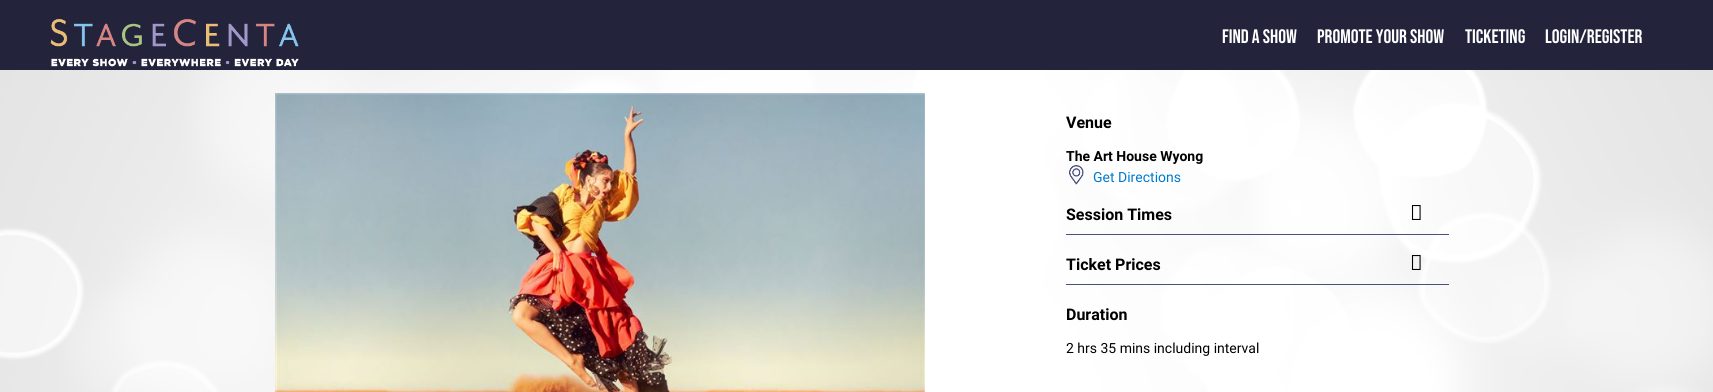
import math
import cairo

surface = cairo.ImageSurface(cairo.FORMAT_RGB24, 1713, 392)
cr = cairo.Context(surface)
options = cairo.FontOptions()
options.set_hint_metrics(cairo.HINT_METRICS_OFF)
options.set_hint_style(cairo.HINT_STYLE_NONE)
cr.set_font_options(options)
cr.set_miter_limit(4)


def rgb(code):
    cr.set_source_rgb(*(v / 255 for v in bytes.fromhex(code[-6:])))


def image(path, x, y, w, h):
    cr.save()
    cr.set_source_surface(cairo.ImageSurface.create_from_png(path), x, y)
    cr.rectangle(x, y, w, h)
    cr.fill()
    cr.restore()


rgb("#ffffff")
cr.paint()
image("img/1.png", 0, 70, 1713, 322)
rgb("#23243b")
cr.rectangle(0, 0, 1713, 70)
cr.fill()
image("img/2.png", 50, 18, 249, 49)
image("img/3.png", 275, 93, 650, 299)
image("img/4.png", 1069, 165, 15, 20)
rgb("#4a4f7f")
cr.rectangle(1066, 234, 383, 1)
cr.fill()
image("img/5.png", 1411, 205, 10, 15)
cr.rectangle(1066, 284, 383, 1)
cr.fill()
image("img/6.png", 1411, 255, 10, 15)
cr.select_font_face("Bebas Neue")
cr.set_font_size(19.5)
rgb("#ffffff")
for x, y, s in [
    (1222, 43, "FIND A SHOW"),
    (1317, 43, "PROMOTE YOUR SHOW"),
    (1465, 43, "TICKETING"),
    (1545, 43, "LOGIN/REGISTER"),
]:
    cr.move_to(x, y)
    cr.show_text(s)
cr.select_font_face("Roboto", cairo.FONT_SLANT_NORMAL, cairo.FONT_WEIGHT_BOLD)
cr.set_font_size(16)
rgb("#000000")
cr.move_to(1066, 128)
cr.show_text("Venue")
cr.set_font_size(14)
cr.move_to(1066, 161)
cr.show_text("The Art House Wyong")
cr.select_font_face("Roboto")
rgb("#007ace")
cr.move_to(1093, 182)
cr.show_text("Get Directions")
cr.select_font_face("Roboto", cairo.FONT_SLANT_NORMAL, cairo.FONT_WEIGHT_BOLD)
cr.set_font_size(16)
rgb("#000000")
for x, y, s in [
    (1066, 220, "Session Times"),
    (1066, 270, "Ticket Prices"),
    (1066, 320, "Duration"),
]:
    cr.move_to(x, y)
    cr.show_text(s)
cr.select_font_face("Roboto")
cr.set_font_size(14)
cr.move_to(1066, 353)
cr.show_text("2 hrs 35 mins including interval")
surface.write_to_png("page.png")
